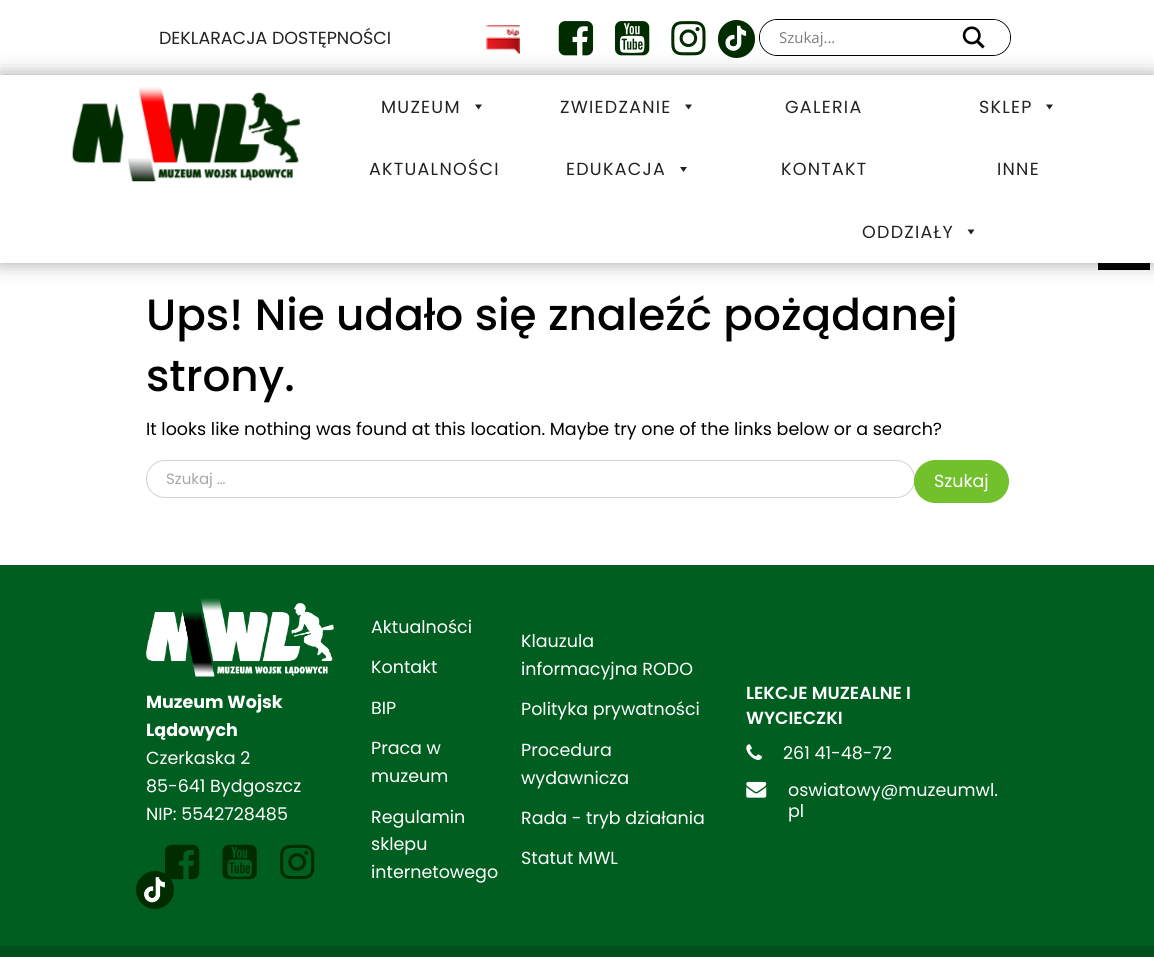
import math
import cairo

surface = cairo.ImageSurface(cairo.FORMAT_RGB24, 1154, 957)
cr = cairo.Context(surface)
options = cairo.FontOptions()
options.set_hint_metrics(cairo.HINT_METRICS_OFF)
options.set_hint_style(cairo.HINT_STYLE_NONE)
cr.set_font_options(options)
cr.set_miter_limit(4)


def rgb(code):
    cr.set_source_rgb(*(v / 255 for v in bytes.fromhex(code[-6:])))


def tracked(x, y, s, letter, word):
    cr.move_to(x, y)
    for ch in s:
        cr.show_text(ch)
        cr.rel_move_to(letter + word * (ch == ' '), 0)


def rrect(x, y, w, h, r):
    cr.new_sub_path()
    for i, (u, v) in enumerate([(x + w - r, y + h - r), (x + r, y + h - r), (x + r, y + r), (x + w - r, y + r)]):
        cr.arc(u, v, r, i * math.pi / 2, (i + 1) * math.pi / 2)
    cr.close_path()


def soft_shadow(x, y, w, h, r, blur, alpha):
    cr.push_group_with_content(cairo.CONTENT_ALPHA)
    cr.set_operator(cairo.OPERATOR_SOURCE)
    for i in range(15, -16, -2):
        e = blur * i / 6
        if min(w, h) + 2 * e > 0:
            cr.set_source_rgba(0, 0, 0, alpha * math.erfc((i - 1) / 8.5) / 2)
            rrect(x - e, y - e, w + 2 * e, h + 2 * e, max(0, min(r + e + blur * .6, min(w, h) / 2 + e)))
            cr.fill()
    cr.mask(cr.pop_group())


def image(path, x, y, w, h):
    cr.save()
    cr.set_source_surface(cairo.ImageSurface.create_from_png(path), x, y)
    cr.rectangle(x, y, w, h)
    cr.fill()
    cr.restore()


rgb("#ffffff")
cr.paint()
image("img/1.png", 486, 25, 34, 29)
image("img/2.png", 558, 21, 36, 35)
image("img/3.png", 615, 21, 35, 35)
image("img/4.png", 671, 21, 35, 35)
rgb("#012c00")
rrect(718, 20, 37, 38, 18.5)
cr.fill()
image("img/5.png", 725, 25, 22, 26)
rrect(759.5, 19.5, 251, 36, 18)
rgb("#000000")
cr.set_line_width(1)
cr.stroke()
rgb("#ffffff")
rrect(760, 20, 250, 35, 17.5)
cr.fill()
image("img/6.png", 962, 26, 23, 23)
rgb("#000000")
cr.rectangle(1098, 263, 52, 7)
cr.fill()
rgb("#191919")
soft_shadow(0, 75, 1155, 188, 0, 9.5, 0.4)
rgb("#ffffff")
cr.rectangle(0, 75, 1154, 188)
cr.fill()
image("img/7.png", 72, 87, 229, 95)
rgb("#212121")
cr.new_path()
cr.move_to(482, 104.5)
cr.line_to(478.5, 109.5)
cr.line_to(475, 104.5)
cr.close_path()
cr.fill()
cr.new_path()
cr.move_to(692, 104.5)
cr.line_to(688.5, 109.5)
cr.line_to(685, 104.5)
cr.close_path()
cr.fill()
cr.new_path()
cr.move_to(687, 167)
cr.line_to(683.5, 172)
cr.line_to(680, 167)
cr.close_path()
cr.fill()
cr.new_path()
cr.move_to(1053, 104.5)
cr.line_to(1049.5, 109.5)
cr.line_to(1046, 104.5)
cr.close_path()
cr.fill()
cr.new_path()
cr.move_to(974.5, 229.5)
cr.line_to(971, 234.5)
cr.line_to(967.5, 229.5)
cr.close_path()
cr.fill()
rrect(146.5, 460.5, 768, 37, 18.5)
rgb("#ced4da")
cr.stroke()
rgb("#72c02c")
rrect(914.5, 460.5, 94, 42, 21)
cr.fill_preserve()
cr.stroke()
rgb("#005e20")
cr.rectangle(0, 565, 1154, 381)
cr.fill()
image("img/8.png", 146, 598, 188, 79)
rgb("#012c00")
cr.arc(155, 890, 19, 0, 2 * math.pi)
cr.fill()
image("img/9.png", 165, 844, 35, 36)
image("img/10.png", 222, 844, 35, 36)
image("img/11.png", 280, 844, 35, 36)
image("img/12.png", 144, 877, 21, 26)
image("img/13.png", 746, 744, 16, 16)
image("img/14.png", 746, 781, 21, 17)
rgb("#02501c")
cr.rectangle(0, 946, 1154, 11)
cr.fill()
cr.select_font_face("Poppins")
cr.set_font_size(17.5)
rgb("#222222")
cr.move_to(159, 44)
cr.show_text("DEKLARACJA DOSTĘPNOŚCI")
cr.save()
rrect(779, 20, 152, 35, 17.5)
cr.clip()
cr.select_font_face("Open Sans")
cr.set_font_size(15)
rgb("#7d7d7d")
cr.move_to(779, 43)
cr.show_text("Szukaj...")
cr.restore()
for x, y, s in [
    (381, 113, "MUZEUM"),
    (560, 113, "ZWIEDZANIE"),
    (369, 175, "AKTUALNOŚCI"),
    (566, 175, "EDUKACJA"),
    (785, 113, "GALERIA"),
    (979, 113, "SKLEP"),
    (781, 175, "KONTAKT"),
    (997, 175, "INNE"),
    (862, 238, "ODDZIAŁY"),
]:
    tracked(x, y, s, 1.25, 0)
cr.select_font_face("Poppins Medium")
cr.set_font_size(43.75)
rgb("#000000")
cr.move_to(146, 330)
cr.show_text("Ups! Nie udało się znaleźć pożądanej")
cr.move_to(146, 391)
cr.show_text("strony.")
cr.select_font_face("Poppins")
cr.set_font_size(17.5)
cr.move_to(146, 435)
cr.show_text("It looks like nothing was found at this location. Maybe try one of the links below or a search?")
cr.set_font_size(15)
rgb("#a4a8ab")
cr.move_to(166, 484)
cr.show_text("Szukaj …")
cr.set_font_size(17.5)
rgb("#ffffff")
cr.move_to(934, 487)
cr.show_text("Szukaj")
cr.select_font_face("Poppins", cairo.FONT_SLANT_NORMAL, cairo.FONT_WEIGHT_BOLD)
cr.move_to(146, 708)
cr.show_text("Muzeum Wojsk")
cr.move_to(146, 736)
cr.show_text("Lądowych")
cr.select_font_face("Poppins")
for x, y, s in [
    (146, 764, "Czerkaska 2"),
    (146, 792, "85-641 Bydgoszcz"),
    (146, 820, "NIP: 5542728485"),
    (371, 633, "Aktualności"),
    (371, 673, "Kontakt"),
    (371, 714, "BIP"),
    (371, 754, "Praca w"),
    (371, 782, "muzeum"),
    (371, 823, "Regulamin"),
    (371, 850, "sklepu"),
    (371, 878, "internetowego"),
    (521, 647, "Klauzula"),
    (521, 675, "informacyjna RODO"),
    (521, 715, "Polityka prywatności"),
    (521, 756, "Procedura"),
    (521, 784, "wydawnicza"),
    (521, 824, "Rada - tryb działania"),
    (521, 864, "Statut MWL"),
]:
    cr.move_to(x, y)
    cr.show_text(s)
cr.select_font_face("Poppins SemiBold")
cr.move_to(746, 699)
cr.show_text("LEKCJE MUZEALNE I")
cr.move_to(746, 724)
cr.show_text("WYCIECZKI")
cr.select_font_face("Poppins")
for x, y, s in [
    (783, 759, "261 41-48-72"),
    (788, 796, "oswiatowy@muzeumwl."),
    (788, 817, "pl"),
]:
    cr.move_to(x, y)
    cr.show_text(s)
surface.write_to_png("page.png")
